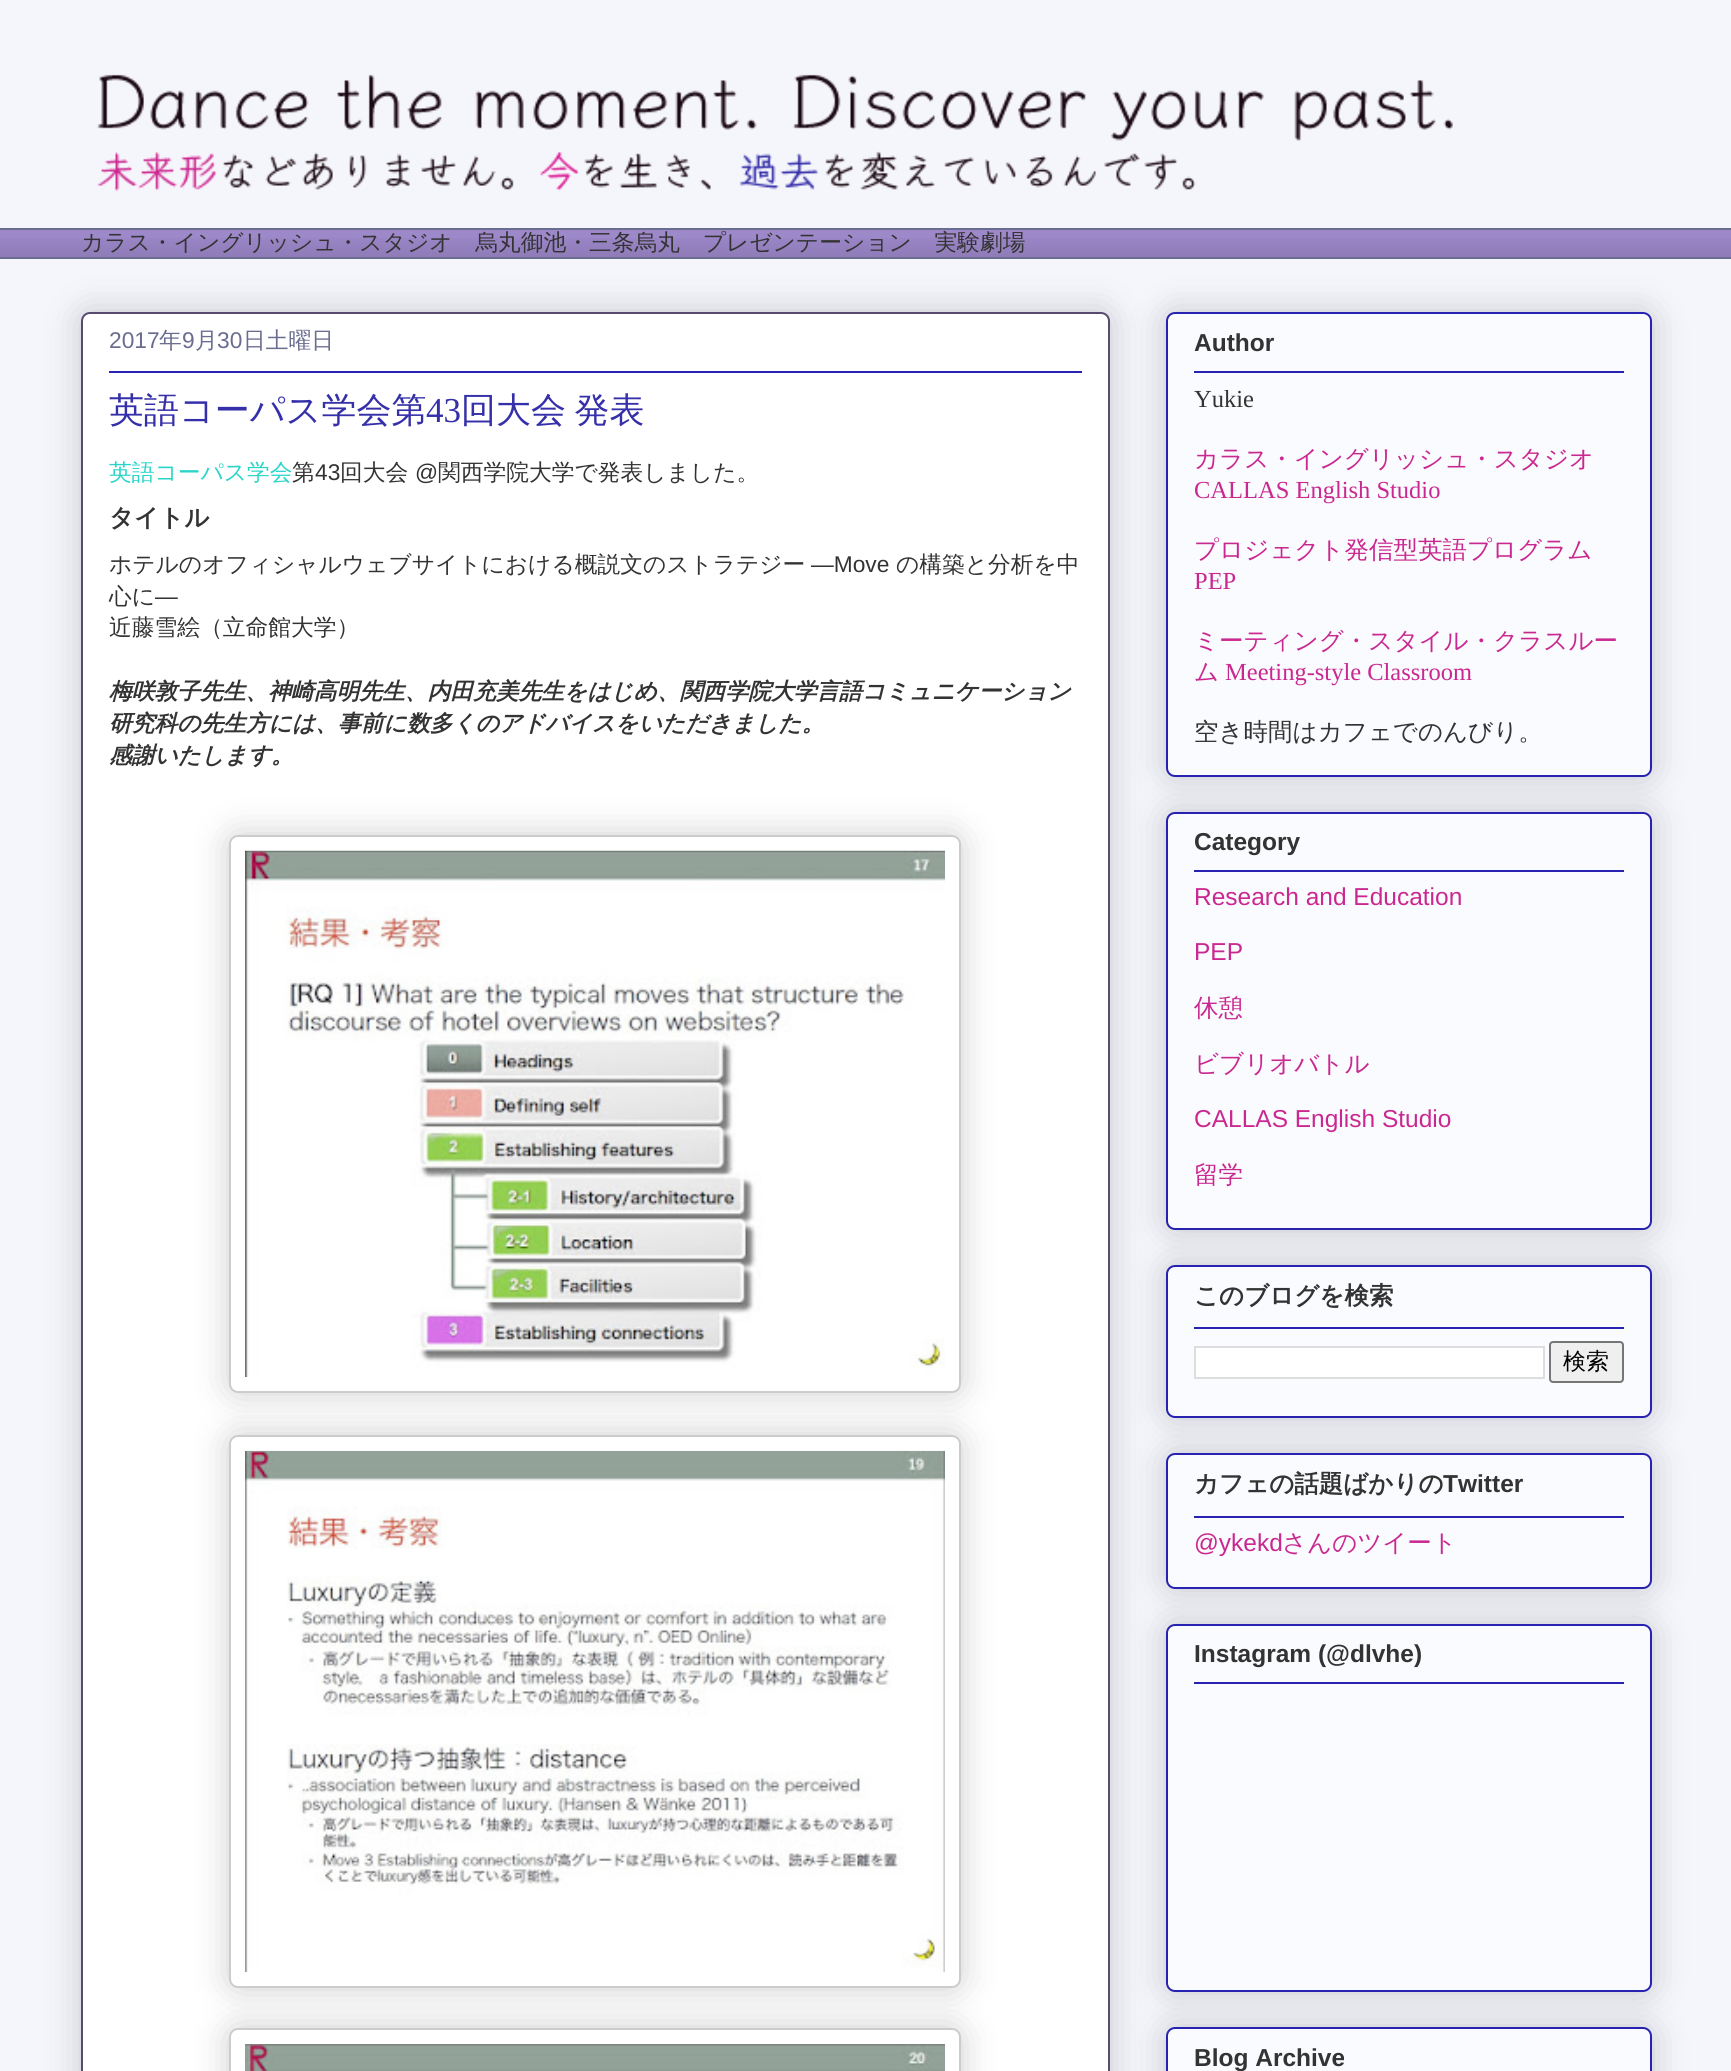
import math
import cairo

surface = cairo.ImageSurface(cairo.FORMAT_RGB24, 1731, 2071)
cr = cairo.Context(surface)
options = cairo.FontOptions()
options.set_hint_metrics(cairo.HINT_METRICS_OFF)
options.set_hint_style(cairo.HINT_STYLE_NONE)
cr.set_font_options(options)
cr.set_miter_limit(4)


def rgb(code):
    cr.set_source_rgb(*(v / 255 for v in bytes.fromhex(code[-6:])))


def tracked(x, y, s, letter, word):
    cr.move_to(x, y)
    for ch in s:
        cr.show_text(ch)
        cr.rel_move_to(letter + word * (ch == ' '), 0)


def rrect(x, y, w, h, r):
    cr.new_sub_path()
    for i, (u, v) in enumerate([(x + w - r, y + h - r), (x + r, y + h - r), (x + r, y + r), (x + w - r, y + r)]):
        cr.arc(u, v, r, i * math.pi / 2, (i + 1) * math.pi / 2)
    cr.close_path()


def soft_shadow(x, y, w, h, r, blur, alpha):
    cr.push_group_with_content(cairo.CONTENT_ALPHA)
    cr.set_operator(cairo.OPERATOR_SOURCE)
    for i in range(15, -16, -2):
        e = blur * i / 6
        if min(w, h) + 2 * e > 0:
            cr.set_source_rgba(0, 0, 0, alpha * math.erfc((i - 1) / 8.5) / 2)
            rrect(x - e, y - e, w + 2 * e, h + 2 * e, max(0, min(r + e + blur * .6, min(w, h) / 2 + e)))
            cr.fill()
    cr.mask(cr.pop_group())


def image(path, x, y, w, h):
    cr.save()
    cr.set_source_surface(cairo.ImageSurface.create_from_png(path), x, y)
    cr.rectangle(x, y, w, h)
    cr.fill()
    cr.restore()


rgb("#f5f6fc")
cr.paint()
image("img/1.png", 97, 74, 1356, 118)
rgb("#9d88ca")
cr.rectangle(0, 230, 1731, 27)
cr.fill()
image("img/2.png", 0, 238, 1731, 19)
rgb("#6a6d90")
cr.rectangle(0, 228, 1731, 2)
cr.fill()
cr.rectangle(0, 257, 1731, 2)
cr.fill()
rgb("#000000")
soft_shadow(81, 312, 1029, 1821, 9, 17.5, 0.2)
rgb("#ffffff")
rrect(82, 313, 1027, 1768, 8)
cr.fill_preserve()
rgb("#574b70")
cr.stroke()
rgb("#2722b1")
cr.rectangle(109, 371, 973, 2)
cr.fill()
rgb("#000000")
soft_shadow(229, 835, 732, 558, 9, 17.5, 0.2)
rgb("#ffffff")
rrect(230, 836, 730, 556, 8)
cr.fill_preserve()
rgb("#cccccc")
cr.stroke()
image("img/3.png", 245, 850, 700, 528)
rgb("#000000")
soft_shadow(229, 1435, 732, 553, 9, 17.5, 0.2)
rgb("#ffffff")
rrect(230, 1436, 730, 551, 8)
cr.fill_preserve()
rgb("#cccccc")
cr.stroke()
image("img/4.png", 245, 1450, 700, 523)
rgb("#000000")
soft_shadow(229, 2028, 732, 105, 9, 17.5, 0.2)
rgb("#ffffff")
rrect(230, 2029, 730, 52, 8)
cr.fill_preserve()
rgb("#cccccc")
cr.stroke()
image("img/5.png", 245, 2044, 700, 27)
rgb("#000000")
soft_shadow(1166, 312, 486, 465, 9, 17.5, 0.2)
rgb("#fafbfe")
rrect(1167, 313, 484, 463, 8)
cr.fill_preserve()
rgb("#2722b1")
cr.stroke()
cr.rectangle(1194, 371, 430, 2)
cr.fill()
rgb("#000000")
soft_shadow(1166, 812, 486, 418, 9, 17.5, 0.2)
rgb("#fafbfe")
rrect(1167, 813, 484, 416, 8)
cr.fill_preserve()
rgb("#2722b1")
cr.stroke()
cr.rectangle(1194, 870, 430, 2)
cr.fill()
rgb("#000000")
soft_shadow(1166, 1265, 486, 153, 9, 17.5, 0.2)
rgb("#fafbfe")
rrect(1167, 1266, 484, 151, 8)
cr.fill_preserve()
rgb("#2722b1")
cr.stroke()
cr.rectangle(1194, 1327, 430, 2)
cr.fill()
rgb("#ffffff")
cr.rectangle(1195, 1347, 349, 31)
cr.fill_preserve()
rgb("#dddddd")
cr.stroke()
rgb("#efefef")
rrect(1550, 1342, 73, 40, 3)
cr.fill_preserve()
rgb("#767676")
cr.stroke()
rgb("#000000")
soft_shadow(1166, 1453, 486, 136, 9, 17.5, 0.2)
rgb("#fafbfe")
rrect(1167, 1454, 484, 134, 8)
cr.fill_preserve()
rgb("#2722b1")
cr.stroke()
cr.rectangle(1194, 1516, 430, 2)
cr.fill()
rgb("#000000")
soft_shadow(1166, 1624, 486, 368, 9, 17.5, 0.2)
rgb("#fafbfe")
rrect(1167, 1625, 484, 366, 8)
cr.fill_preserve()
rgb("#2722b1")
cr.stroke()
cr.rectangle(1194, 1682, 430, 2)
cr.fill()
rgb("#000000")
soft_shadow(1166, 2027, 486, 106, 9, 17.5, 0.2)
rgb("#fafbfe")
rrect(1167, 2028, 484, 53, 8)
cr.fill_preserve()
rgb("#2722b1")
cr.stroke()
cr.select_font_face("WenQuanYi Zen Hei Medium")
cr.set_font_size(22.75)
rgb("#333333")
cr.move_to(81, 250)
cr.show_text("カラス・イングリッシュ・スタジオ　烏丸御池・三条烏丸　プレゼンテーション　実験劇場")
cr.select_font_face("Liberation Sans")
rgb("#6a6d90")
cr.move_to(109, 348)
cr.show_text("2017")
cr.select_font_face("WenQuanYi Zen Hei Medium")
cr.move_to(159, 348)
cr.show_text("年")
cr.select_font_face("Liberation Sans")
cr.move_to(182, 348)
cr.show_text("9")
cr.select_font_face("WenQuanYi Zen Hei Medium")
cr.move_to(195, 348)
cr.show_text("月")
cr.select_font_face("Liberation Sans")
cr.move_to(217, 348)
cr.show_text("30")
cr.select_font_face("WenQuanYi Zen Hei Medium")
cr.move_to(243, 348)
cr.show_text("日土曜日")
cr.set_font_size(35)
rgb("#352fa9")
cr.move_to(109, 422)
cr.show_text("英語コーパス学会第")
cr.select_font_face("Liberation Serif")
cr.move_to(426, 422)
cr.show_text("43")
cr.select_font_face("WenQuanYi Zen Hei Medium")
tracked(461, 422, "回大会 発表", 0, -2)
cr.set_font_size(22.75)
rgb("#29d5c9")
cr.move_to(109, 480)
cr.show_text("英語コーパス学会")
rgb("#333333")
cr.move_to(292, 480)
cr.show_text("第")
cr.select_font_face("Liberation Sans")
cr.move_to(315, 480)
cr.show_text("43")
cr.select_font_face("WenQuanYi Zen Hei Medium")
cr.move_to(340, 480)
cr.show_text("回大会")
cr.select_font_face("Liberation Sans")
cr.move_to(415, 480)
cr.show_text("@")
cr.select_font_face("WenQuanYi Zen Hei Medium")
cr.move_to(438, 480)
cr.show_text("関西学院大学で発表しました。")
cr.select_font_face("WenQuanYi Zen Hei", cairo.FONT_SLANT_NORMAL, cairo.FONT_WEIGHT_BOLD)
cr.set_font_size(24.5)
cr.move_to(109, 526)
cr.show_text("タイトル")
cr.select_font_face("WenQuanYi Zen Hei Medium")
cr.set_font_size(22.75)
cr.move_to(109, 572)
cr.show_text("ホテルのオフィシャルウェブサイトにおける概説文のストラテジー")
cr.select_font_face("Liberation Sans")
cr.move_to(811, 572)
cr.show_text("―Move")
cr.select_font_face("WenQuanYi Zen Hei Medium")
cr.move_to(896, 572)
cr.show_text("の構築と分析を中")
cr.move_to(109, 604)
cr.show_text("心に")
cr.select_font_face("Liberation Sans")
cr.move_to(155, 604)
cr.show_text("―")
cr.select_font_face("WenQuanYi Zen Hei Medium")
cr.move_to(109, 635)
cr.show_text("近藤雪絵（立命館大学）")
cr.select_font_face("WenQuanYi Zen Hei", cairo.FONT_SLANT_ITALIC, cairo.FONT_WEIGHT_BOLD)
for x, y, s in [
    (109, 699, "梅咲敦子先生、神崎高明先生、内田充美先生をはじめ、関西学院大学言語コミュニケーション"),
    (109, 731, "研究科の先生方には、事前に数多くのアドバイスをいただきました。"),
    (109, 763, "感謝いたします。"),
]:
    cr.move_to(x, y)
    cr.show_text(s)
cr.select_font_face("Liberation Sans", cairo.FONT_SLANT_NORMAL, cairo.FONT_WEIGHT_BOLD)
cr.set_font_size(24.5)
cr.move_to(1194, 351)
cr.show_text("Author")
cr.select_font_face("Liberation Serif")
cr.move_to(1194, 407)
cr.show_text("Yukie")
cr.select_font_face("WenQuanYi Zen Hei Medium")
rgb("#ca2891")
cr.move_to(1194, 467)
cr.show_text("カラス・イングリッシュ・スタジオ")
cr.select_font_face("Liberation Serif")
cr.move_to(1194, 498)
cr.show_text("CALLAS English Studio")
cr.select_font_face("WenQuanYi Zen Hei Medium")
cr.move_to(1194, 558)
cr.show_text("プロジェクト発信型英語プログラム")
cr.select_font_face("Liberation Serif")
cr.move_to(1194, 589)
cr.show_text("PEP")
cr.select_font_face("WenQuanYi Zen Hei Medium")
cr.move_to(1194, 649)
cr.show_text("ミーティング・スタイル・クラスルー")
cr.move_to(1194, 680)
cr.show_text("ム")
cr.select_font_face("Liberation Serif")
cr.move_to(1225, 680)
cr.show_text("Meeting-style Classroom")
cr.select_font_face("WenQuanYi Zen Hei Medium")
rgb("#333333")
cr.move_to(1194, 740)
cr.show_text("空き時間はカフェでのんびり。")
cr.select_font_face("Liberation Sans", cairo.FONT_SLANT_NORMAL, cairo.FONT_WEIGHT_BOLD)
cr.move_to(1194, 850)
cr.show_text("Category")
cr.select_font_face("Liberation Sans")
rgb("#ca2891")
cr.move_to(1194, 905)
cr.show_text("Research and Education")
cr.move_to(1194, 960)
cr.show_text("PEP")
cr.select_font_face("WenQuanYi Zen Hei Medium")
cr.move_to(1194, 1016)
cr.show_text("休憩")
cr.move_to(1194, 1072)
cr.show_text("ビブリオバトル")
cr.select_font_face("Liberation Sans")
cr.move_to(1194, 1127)
cr.show_text("CALLAS English Studio")
cr.select_font_face("WenQuanYi Zen Hei Medium")
cr.move_to(1194, 1183)
cr.show_text("留学")
cr.select_font_face("WenQuanYi Zen Hei", cairo.FONT_SLANT_NORMAL, cairo.FONT_WEIGHT_BOLD)
rgb("#333333")
cr.move_to(1194, 1304)
cr.show_text("このブログを検索")
cr.select_font_face("WenQuanYi Zen Hei Medium")
cr.set_font_size(23)
rgb("#000000")
cr.move_to(1563, 1369)
cr.show_text("検索")
cr.select_font_face("WenQuanYi Zen Hei", cairo.FONT_SLANT_NORMAL, cairo.FONT_WEIGHT_BOLD)
cr.set_font_size(24.5)
rgb("#333333")
cr.move_to(1194, 1492)
cr.show_text("カフェの話題ばかりの")
cr.select_font_face("Liberation Sans", cairo.FONT_SLANT_NORMAL, cairo.FONT_WEIGHT_BOLD)
cr.move_to(1443, 1492)
cr.show_text("Twitter")
cr.select_font_face("Liberation Sans")
rgb("#ca2891")
cr.move_to(1194, 1551)
cr.show_text("@ykekd")
cr.select_font_face("WenQuanYi Zen Hei Medium")
cr.move_to(1282, 1551)
cr.show_text("さんのツイート")
cr.select_font_face("Liberation Sans", cairo.FONT_SLANT_NORMAL, cairo.FONT_WEIGHT_BOLD)
rgb("#333333")
cr.move_to(1194, 1662)
cr.show_text("Instagram (@dlvhe)")
cr.move_to(1194, 2066)
cr.show_text("Blog Archive")
surface.write_to_png("page.png")
